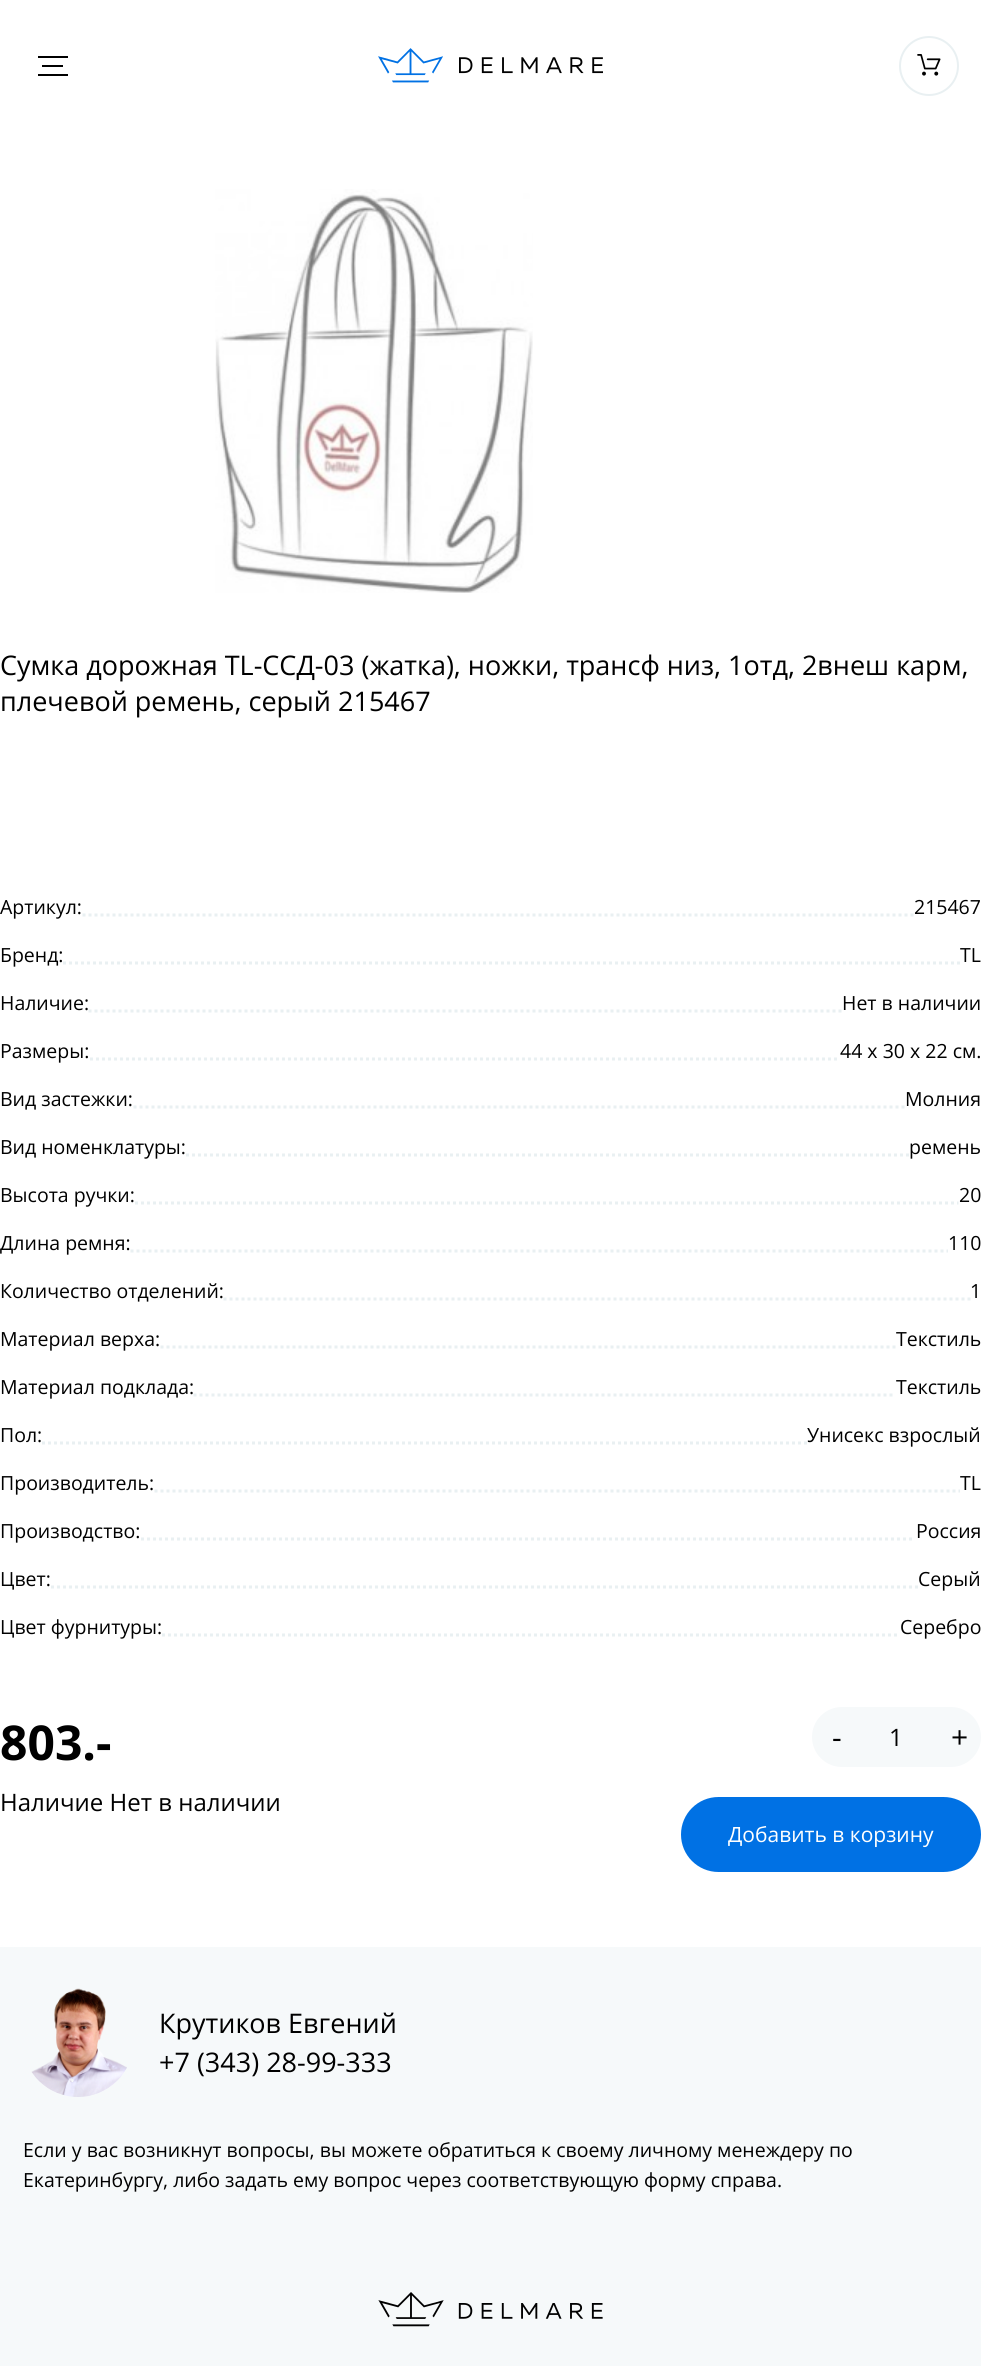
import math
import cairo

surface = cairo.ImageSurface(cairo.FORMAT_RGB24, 981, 2366)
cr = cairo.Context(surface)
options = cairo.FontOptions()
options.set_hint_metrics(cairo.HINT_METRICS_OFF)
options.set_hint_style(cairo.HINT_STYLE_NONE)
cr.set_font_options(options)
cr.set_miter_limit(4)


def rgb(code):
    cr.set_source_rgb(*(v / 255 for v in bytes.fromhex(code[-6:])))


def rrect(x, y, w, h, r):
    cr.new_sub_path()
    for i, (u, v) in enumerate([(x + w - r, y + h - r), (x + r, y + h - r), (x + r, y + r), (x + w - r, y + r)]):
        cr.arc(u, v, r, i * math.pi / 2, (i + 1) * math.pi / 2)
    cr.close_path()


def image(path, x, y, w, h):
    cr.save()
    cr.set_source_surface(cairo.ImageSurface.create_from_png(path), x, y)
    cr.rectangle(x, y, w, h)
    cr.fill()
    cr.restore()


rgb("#ffffff")
cr.paint()
for x, y, w, h, color in [
    (42, 65, 21, 2, "#000000"),
    (38, 56, 30, 2, "#000000"),
    (38, 74, 30, 2, "#000000"),
]:
    rgb(color)
    cr.rectangle(x, y, w, h)
    cr.fill()
image("img/1.png", 378, 48, 65, 35)
image("img/2.png", 459, 57, 144, 17)
cr.arc(929, 66, 29, 0, 2 * math.pi)
rgb("#e9f0f2")
cr.stroke()
image("img/3.png", 917, 54, 24, 22)
image("img/4.png", 215, 189, 318, 404)
cr.new_path()
cr.move_to(82.5, 915)
cr.line_to(913.5, 915)
cr.set_line_width(3)
cr.set_dash([3, 3])
cr.stroke()
cr.new_path()
cr.move_to(63, 963)
cr.line_to(960, 963)
cr.stroke()
cr.new_path()
cr.move_to(88.5, 1011)
cr.line_to(841.5, 1011)
cr.stroke()
cr.new_path()
cr.move_to(90, 1059)
cr.line_to(840, 1059)
cr.stroke()
cr.new_path()
cr.move_to(133.5, 1107)
cr.line_to(904.5, 1107)
cr.stroke()
cr.new_path()
cr.move_to(186, 1155)
cr.line_to(909, 1155)
cr.stroke()
cr.new_path()
cr.move_to(135, 1203)
cr.line_to(958.5, 1203)
cr.stroke()
cr.new_path()
cr.move_to(130.5, 1251)
cr.line_to(948, 1251)
cr.stroke()
cr.new_path()
cr.move_to(223.5, 1299)
cr.line_to(970.5, 1299)
cr.stroke()
cr.new_path()
cr.move_to(160.5, 1347)
cr.line_to(895.5, 1347)
cr.stroke()
cr.new_path()
cr.move_to(193.5, 1395)
cr.line_to(895.5, 1395)
cr.stroke()
cr.new_path()
cr.move_to(42, 1443)
cr.line_to(807, 1443)
cr.stroke()
cr.new_path()
cr.move_to(154.5, 1491)
cr.line_to(960, 1491)
cr.stroke()
cr.new_path()
cr.move_to(141, 1539)
cr.line_to(915, 1539)
cr.stroke()
cr.new_path()
cr.move_to(51, 1587)
cr.line_to(918, 1587)
cr.stroke()
cr.new_path()
cr.move_to(162, 1635)
cr.line_to(900, 1635)
cr.stroke()
rgb("#f6f9fa")
rrect(812, 1707, 169, 60, 30)
cr.fill()
rgb("#0071e4")
rrect(681, 1797, 300, 75, 37.5)
cr.fill()
rgb("#f6f9fa")
cr.rectangle(0, 1947, 981, 419)
cr.fill()
image("img/5.png", 31, 1988, 96, 109)
image("img/6.png", 378, 2292, 225, 35)
cr.select_font_face("Open Sans")
cr.set_font_size(27)
rgb("#000000")
cr.move_to(0, 675)
cr.show_text("Сумка дорожная TL-ССД-03 (жатка), ножки, трансф низ, 1отд, 2внеш карм,")
cr.move_to(0, 711)
cr.show_text("плечевой ремень, серый 215467")
cr.set_font_size(19.5)
for x, y, s in [
    (0, 914, "Артикул:"),
    (914, 914, "215467"),
    (0, 962, "Бренд:"),
    (960, 962, "TL"),
    (0, 1010, "Наличие:"),
    (842, 1010, "Нет в наличии"),
    (0, 1058, "Размеры:"),
    (840, 1058, "44 x 30 x 22 см."),
    (0, 1106, "Вид застежки:"),
    (905, 1106, "Молния"),
    (0, 1154, "Вид номенклатуры:"),
    (909, 1154, "ремень"),
    (0, 1202, "Высота ручки:"),
    (959, 1202, "20"),
    (0, 1250, "Длина ремня:"),
    (948, 1250, "110"),
    (0, 1298, "Количество отделений:"),
    (970, 1298, "1"),
    (0, 1346, "Материал верха:"),
    (896, 1346, "Текстиль"),
    (0, 1394, "Материал подклада:"),
    (896, 1394, "Текстиль"),
    (0, 1442, "Пол:"),
    (807, 1442, "Унисекс взрослый"),
    (0, 1490, "Производитель:"),
    (960, 1490, "TL"),
    (0, 1538, "Производство:"),
    (916, 1538, "Россия"),
    (0, 1586, "Цвет:"),
    (918, 1586, "Серый"),
    (0, 1634, "Цвет фурнитуры:"),
    (900, 1634, "Серебро"),
]:
    cr.move_to(x, y)
    cr.show_text(s)
cr.select_font_face("Open Sans", cairo.FONT_SLANT_NORMAL, cairo.FONT_WEIGHT_BOLD)
cr.set_font_size(48)
cr.move_to(0, 1760)
cr.show_text("803.-")
cr.select_font_face("Open Sans")
cr.set_font_size(24)
cr.move_to(0, 1811)
cr.show_text("Наличие Нет в наличии")
cr.set_font_size(30)
cr.move_to(832, 1748)
cr.show_text("-")
cr.set_font_size(24)
cr.move_to(889, 1746)
cr.show_text("1")
cr.set_font_size(30)
cr.move_to(951, 1748)
cr.show_text("+")
cr.set_font_size(21)
rgb("#ffffff")
cr.move_to(728, 1842)
cr.show_text("Добавить в корзину")
cr.set_font_size(27)
rgb("#000000")
cr.move_to(159, 2033)
cr.show_text("Крутиков Евгений")
cr.move_to(159, 2072)
cr.show_text("+7 (343) 28-99-333")
cr.set_font_size(19.5)
cr.move_to(23, 2157)
cr.show_text("Если у вас возникнут вопросы, вы можете обратиться к своему личному менеждеру по")
cr.move_to(23, 2187)
cr.show_text("Екатеринбургу, либо задать ему вопрос через соответствующую форму справа.")
surface.write_to_png("page.png")
